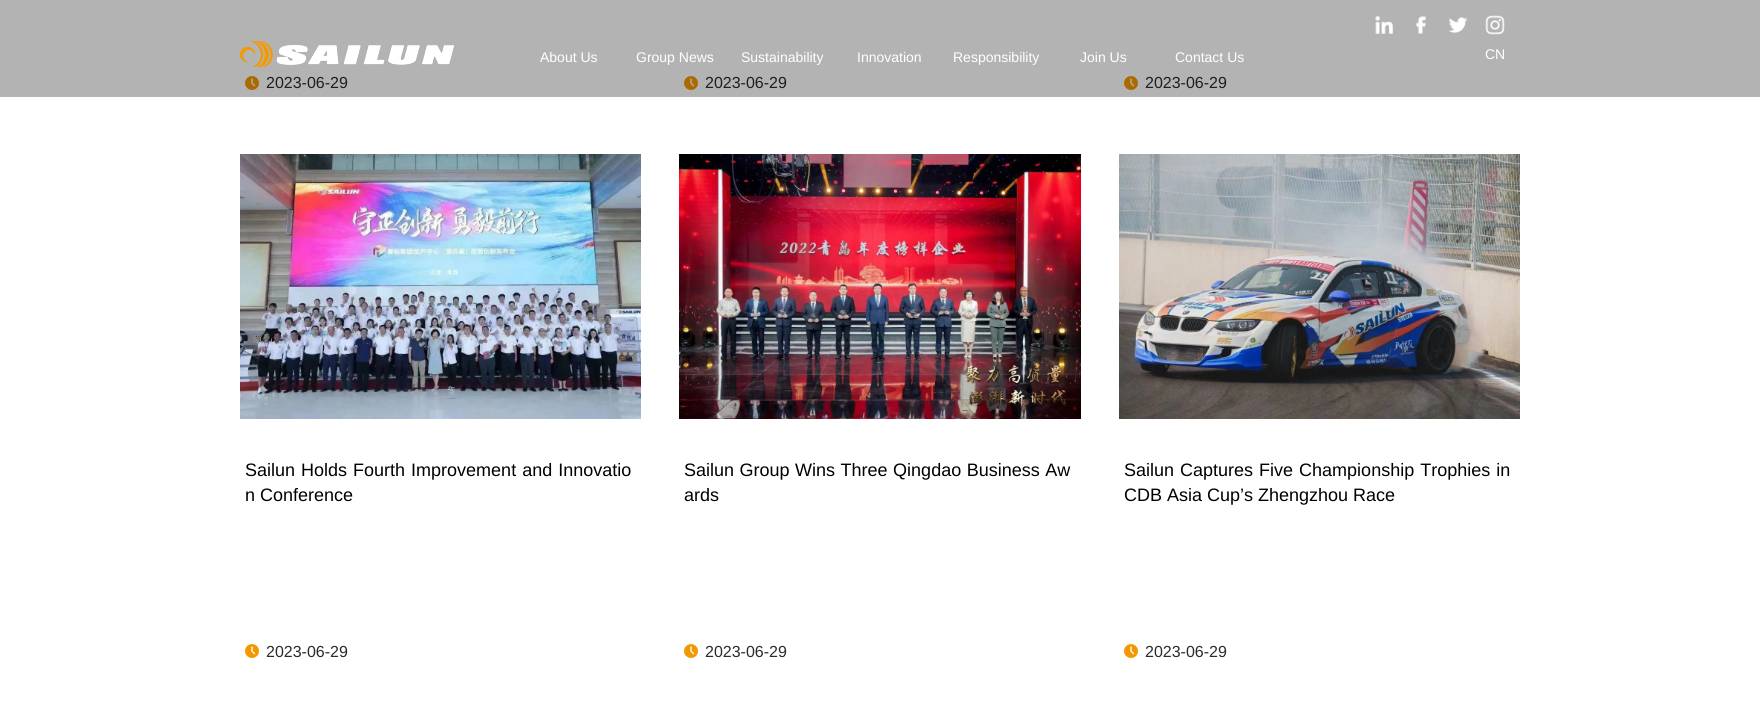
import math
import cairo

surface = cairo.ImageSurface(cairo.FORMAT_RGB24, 1760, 704)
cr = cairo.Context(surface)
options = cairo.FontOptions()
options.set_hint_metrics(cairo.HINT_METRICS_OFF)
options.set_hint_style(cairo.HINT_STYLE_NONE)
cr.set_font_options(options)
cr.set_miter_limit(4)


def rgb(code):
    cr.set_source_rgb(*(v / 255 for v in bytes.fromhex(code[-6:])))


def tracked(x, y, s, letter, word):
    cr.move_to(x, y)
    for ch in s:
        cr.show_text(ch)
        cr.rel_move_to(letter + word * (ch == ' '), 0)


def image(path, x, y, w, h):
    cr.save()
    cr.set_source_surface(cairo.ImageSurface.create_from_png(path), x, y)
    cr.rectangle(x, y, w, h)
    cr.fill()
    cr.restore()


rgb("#ffffff")
cr.paint()
rgb("#b3b3b3")
cr.rectangle(0, 0, 1760, 97)
cr.fill()
image("img/1.png", 240, 41, 214, 26)
image("img/2.png", 1375, 16, 18, 18)
image("img/3.png", 1416, 16, 10, 18)
image("img/4.png", 1449, 17, 19, 16)
image("img/5.png", 1485, 15, 20, 20)
image("img/6.png", 245, 76, 14, 14)
image("img/6.png", 684, 76, 14, 14)
image("img/6.png", 1124, 76, 14, 14)
image("img/7.png", 240, 154, 401, 265)
image("img/8.png", 245, 644, 14, 14)
image("img/9.png", 679, 154, 402, 265)
image("img/8.png", 684, 644, 14, 14)
image("img/10.png", 1119, 154, 401, 265)
image("img/8.png", 1124, 644, 14, 14)
cr.select_font_face("Liberation Sans")
cr.set_font_size(14)
rgb("#ffffff")
for x, y, s in [
    (540, 62, "About Us"),
    (636, 62, "Group News"),
    (741, 62, "Sustainability"),
    (857, 62, "Innovation"),
    (953, 62, "Responsibility"),
    (1080, 62, "Join Us"),
    (1175, 62, "Contact Us"),
    (1485, 59, "CN"),
]:
    cr.move_to(x, y)
    cr.show_text(s)
cr.set_font_size(16)
rgb("#1e1e1e")
for x, y, s in [
    (266, 88, "2023-06-29"),
    (705, 88, "2023-06-29"),
    (1145, 88, "2023-06-29"),
]:
    cr.move_to(x, y)
    cr.show_text(s)
cr.set_font_size(18)
rgb("#000000")
tracked(245, 476, "Sailun Holds Fourth Improvement and Innovatio", 0, 1)
cr.move_to(245, 501)
cr.show_text("n Conference")
cr.set_font_size(16)
rgb("#2b2b2b")
cr.move_to(266, 657)
cr.show_text("2023-06-29")
cr.set_font_size(18)
rgb("#000000")
tracked(684, 476, "Sailun Group Wins Three Qingdao Business Aw", 0, 0.5)
cr.move_to(684, 501)
cr.show_text("ards")
cr.set_font_size(16)
rgb("#2b2b2b")
cr.move_to(705, 657)
cr.show_text("2023-06-29")
cr.set_font_size(18)
rgb("#000000")
tracked(1124, 476, "Sailun Captures Five Championship Trophies in", 0, 1)
cr.move_to(1124, 501)
cr.show_text("CDB Asia Cup’s Zhengzhou Race")
cr.set_font_size(16)
rgb("#2b2b2b")
cr.move_to(1145, 657)
cr.show_text("2023-06-29")
surface.write_to_png("page.png")
